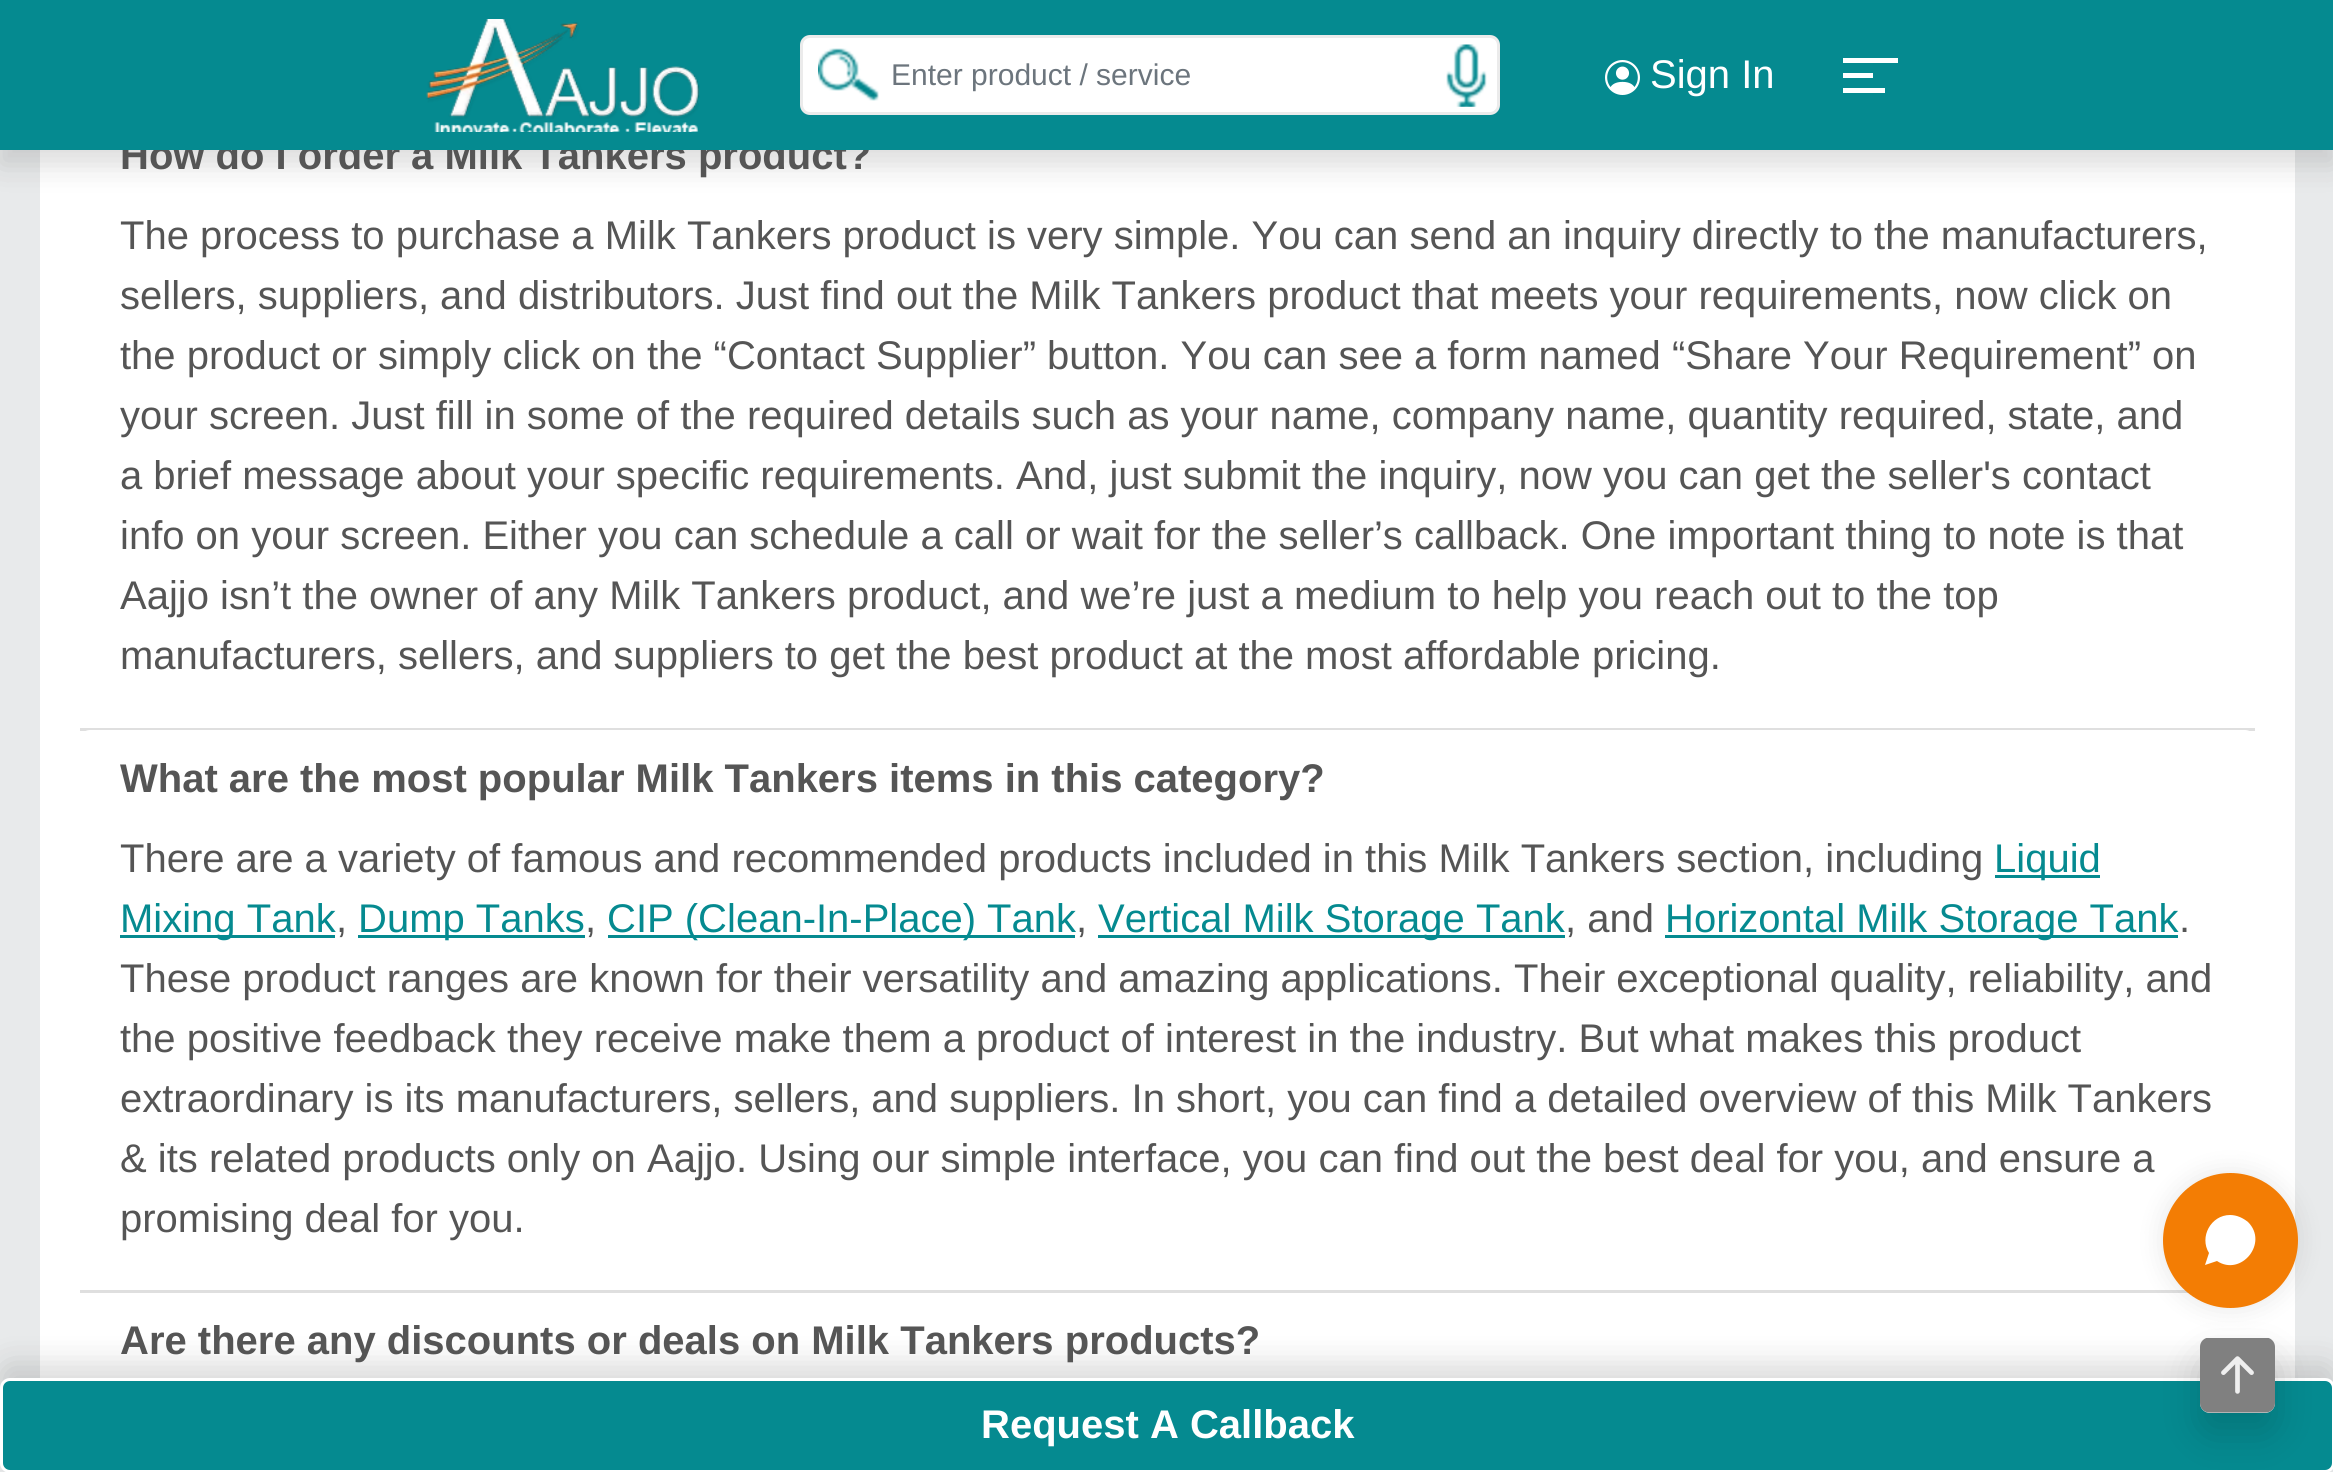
import math
import cairo

surface = cairo.ImageSurface(cairo.FORMAT_RGB24, 2333, 1472)
cr = cairo.Context(surface)
options = cairo.FontOptions()
options.set_hint_metrics(cairo.HINT_METRICS_OFF)
options.set_hint_style(cairo.HINT_STYLE_NONE)
cr.set_font_options(options)
cr.set_miter_limit(4)


def rgb(code):
    cr.set_source_rgb(*(v / 255 for v in bytes.fromhex(code[-6:])))


def rrect(x, y, w, h, r):
    cr.new_sub_path()
    for i, (u, v) in enumerate([(x + w - r, y + h - r), (x + r, y + h - r), (x + r, y + r), (x + w - r, y + r)]):
        cr.arc(u, v, r, i * math.pi / 2, (i + 1) * math.pi / 2)
    cr.close_path()


def soft_shadow(x, y, w, h, r, blur, alpha):
    cr.push_group_with_content(cairo.CONTENT_ALPHA)
    cr.set_operator(cairo.OPERATOR_SOURCE)
    for i in range(15, -16, -2):
        e = blur * i / 6
        if min(w, h) + 2 * e > 0:
            cr.set_source_rgba(0, 0, 0, alpha * math.erfc((i - 1) / 8.5) / 2)
            rrect(x - e, y - e, w + 2 * e, h + 2 * e, max(0, min(r + e + blur * .6, min(w, h) / 2 + e)))
            cr.fill()
    cr.mask(cr.pop_group())


def image(path, x, y, w, h):
    cr.save()
    cr.set_source_surface(cairo.ImageSurface.create_from_png(path), x, y)
    cr.rectangle(x, y, w, h)
    cr.fill()
    cr.restore()


rgb("#e8eaeb")
cr.paint()
rgb("#ffffff")
cr.rectangle(40, 150, 2255, 1228)
cr.fill()
rgb("#0f0f0f")
soft_shadow(0, 15, 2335, 150, 0, 15, 0.15)
rgb("#dfdfdf")
cr.rectangle(80, 728, 2175, 3)
cr.fill()
rgb("#ffffff")
rrect(80, 730, 2175, 563, 10)
cr.fill()
for x, y, w, h, color in [
    (80, 1290, 2108, 3, "#dfdfdf"),
    (1995, 875, 105, 3, "#058a90"),
    (120, 935, 215, 3, "#058a90"),
    (358, 935, 227, 3, "#058a90"),
    (608, 935, 467, 3, "#058a90"),
    (1098, 935, 467, 3, "#058a90"),
    (1665, 935, 513, 3, "#058a90"),
]:
    rgb(color)
    cr.rectangle(x, y, w, h)
    cr.fill()
rgb("#0f0f0f")
soft_shadow(0, 1363, 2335, 95, 10, 15, 0.15)
rgb("#058a90")
rrect(1.5, 1379.5, 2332, 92, 8.5)
cr.fill_preserve()
rgb("#ffffff")
cr.set_line_width(3)
cr.stroke()
rgb("#000000")
soft_shadow(2200, 1358, 75, 75, 10, 20, 0.15)
rgb("#efefef")
rrect(2200, 1338, 75, 75, 10)
cr.fill()
image("img/5.png", 2200, 1338, 75, 75)
rgb("#000000")
soft_shadow(2163, 1173, 135, 135, 67.5, 12.5, 0.1)
rgb("#f37d04")
cr.arc(2230.5, 1240.5, 67.5, 0, 2 * math.pi)
cr.fill()
rgb("#ffffff")
cr.new_path()
cr.move_to(2230, 1215)
cr.curve_to(2211, 1215, 2199, 1237, 2209, 1253)
cr.line_to(2205, 1265)
cr.line_to(2217, 1261)
cr.curve_to(2241, 1277, 2269, 1243, 2248, 1222)
cr.curve_to(2243, 1218, 2237, 1215, 2230, 1215)
cr.close_path()
cr.move_to(2228, 1252)
cr.line_to(2232, 1252)
cr.line_to(2232, 1248)
cr.line_to(2228, 1248)
cr.close_path()
cr.move_to(2228, 1242)
cr.line_to(2232, 1242)
cr.line_to(2232, 1228)
cr.line_to(2228, 1228)
cr.close_path()
cr.fill()
cr.select_font_face("Liberation Sans", cairo.FONT_SLANT_NORMAL, cairo.FONT_WEIGHT_BOLD)
cr.set_font_size(40)
rgb("#555555")
cr.move_to(120, 169)
cr.show_text("How do I order a Milk Tankers product?")
rgb("#058a90")
cr.rectangle(0, 0, 2333, 150)
cr.fill()
rgb("#ffffff")
rrect(801.5, 36.5, 697, 77, 8.5)
cr.fill_preserve()
rgb("#ebebeb")
cr.stroke()
image("img/3.png", 1446, 44, 41, 63)
image("img/2.png", 818, 48, 61, 53)
cr.select_font_face("Liberation Sans")
cr.set_font_size(30)
rgb("#6c757d")
cr.move_to(891, 85)
cr.show_text("Enter product / service")
image("img/4.png", 1605, 60, 35, 35)
cr.set_font_size(40)
rgb("#ffffff")
cr.move_to(1650, 88)
cr.show_text("Sign In")
image("img/1.png", 426, 19, 274, 113)
for x, y, w, h, color in [
    (1843, 88, 42, 5, "#ffffff"),
    (1843, 73, 30, 5, "#ffffff"),
    (1843, 58, 55, 5, "#ffffff"),
]:
    rgb(color)
    cr.rectangle(x, y, w, h)
    cr.fill()
rgb("#555555")
for x, y, s in [
    (120, 249, "The process to purchase a Milk Tankers product is very simple. You can send an inquiry directly to the manufacturers,"),
    (120, 309, "sellers, suppliers, and distributors. Just find out the Milk Tankers product that meets your requirements, now click on"),
    (120, 369, "the product or simply click on the “Contact Supplier” button. You can see a form named “Share Your Requirement” on"),
    (120, 429, "your screen. Just fill in some of the required details such as your name, company name, quantity required, state, and"),
    (120, 489, "a brief message about your specific requirements. And, just submit the inquiry, now you can get the seller's contact"),
    (120, 549, "info on your screen. Either you can schedule a call or wait for the seller’s callback. One important thing to note is that"),
    (120, 609, "Aajjo isn’t the owner of any Milk Tankers product, and we’re just a medium to help you reach out to the top"),
    (120, 669, "manufacturers, sellers, and suppliers to get the best product at the most affordable pricing."),
]:
    cr.move_to(x, y)
    cr.show_text(s)
cr.select_font_face("Liberation Sans", cairo.FONT_SLANT_NORMAL, cairo.FONT_WEIGHT_BOLD)
cr.move_to(120, 792)
cr.show_text("What are the most popular Milk Tankers items in this category?")
cr.select_font_face("Liberation Sans")
cr.move_to(120, 872)
cr.show_text("There are a variety of famous and recommended products included in this Milk Tankers section, including")
rgb("#058a90")
cr.move_to(1994, 872)
cr.show_text("Liquid")
cr.move_to(120, 932)
cr.show_text("Mixing Tank")
rgb("#555555")
cr.move_to(336, 932)
cr.show_text(",")
rgb("#058a90")
cr.move_to(358, 932)
cr.show_text("Dump Tanks")
rgb("#555555")
cr.move_to(585, 932)
cr.show_text(",")
rgb("#058a90")
cr.move_to(607, 932)
cr.show_text("CIP (Clean-In-Place) Tank")
rgb("#555555")
cr.move_to(1076, 932)
cr.show_text(",")
rgb("#058a90")
cr.move_to(1098, 932)
cr.show_text("Vertical Milk Storage Tank")
rgb("#555555")
cr.move_to(1565, 932)
cr.show_text(", and")
rgb("#058a90")
cr.move_to(1665, 932)
cr.show_text("Horizontal Milk Storage Tank")
rgb("#555555")
for x, y, s in [
    (2179, 932, "."),
    (120, 992, "These product ranges are known for their versatility and amazing applications. Their exceptional quality, reliability, and"),
    (120, 1052, "the positive feedback they receive make them a product of interest in the industry. But what makes this product"),
    (120, 1112, "extraordinary is its manufacturers, sellers, and suppliers. In short, you can find a detailed overview of this Milk Tankers"),
    (120, 1172, "& its related products only on Aajjo. Using our simple interface, you can find out the best deal for you, and ensure a"),
    (120, 1232, "promising deal for you."),
]:
    cr.move_to(x, y)
    cr.show_text(s)
cr.select_font_face("Liberation Sans", cairo.FONT_SLANT_NORMAL, cairo.FONT_WEIGHT_BOLD)
cr.move_to(120, 1354)
cr.show_text("Are there any discounts or deals on Milk Tankers products?")
rgb("#ffffff")
cr.move_to(981, 1438)
cr.show_text("Request A Callback")
surface.write_to_png("page.png")
